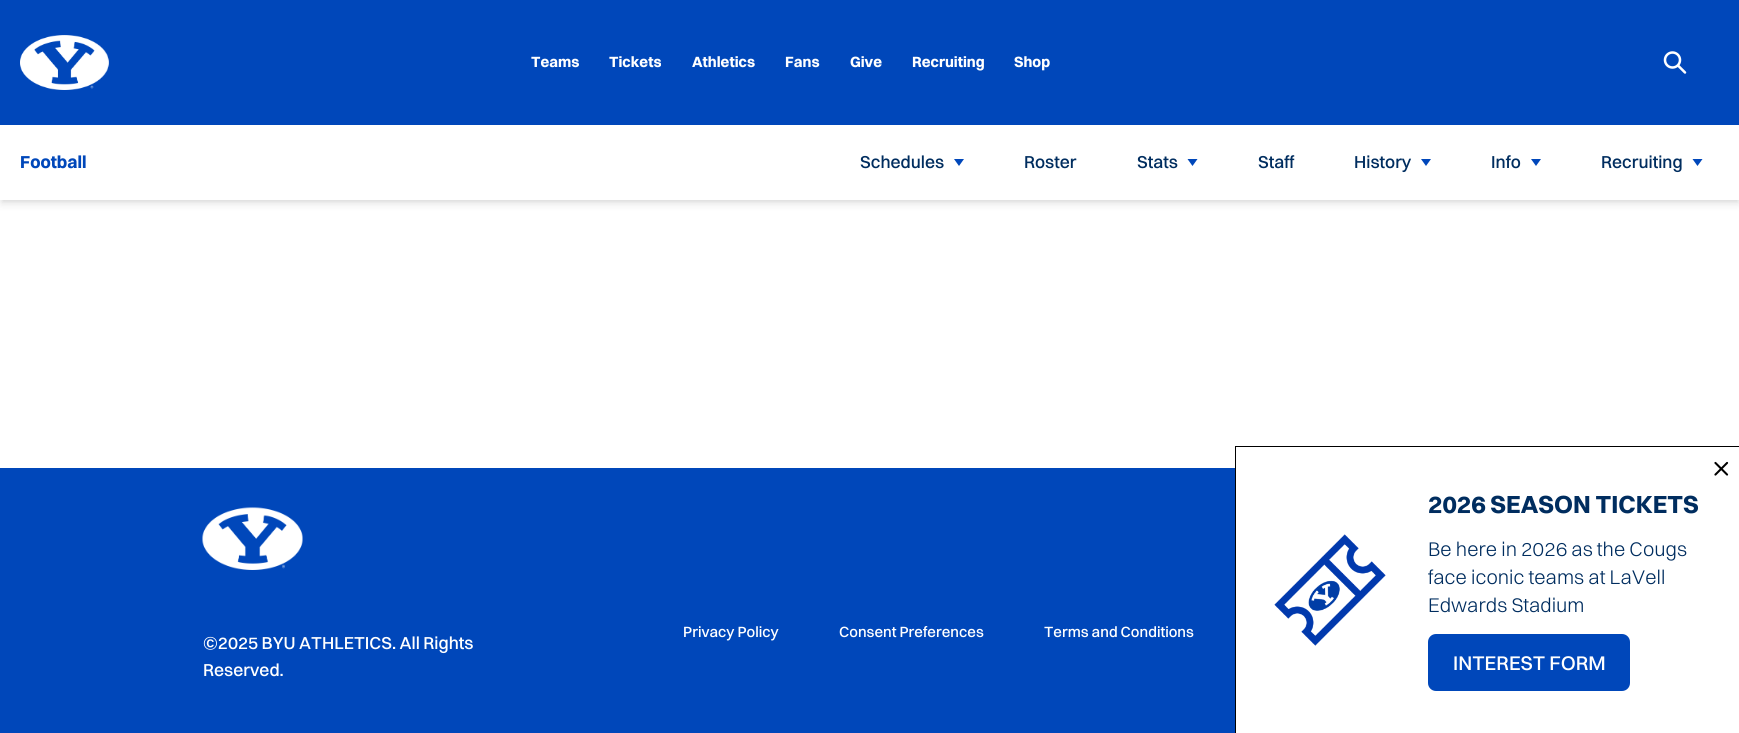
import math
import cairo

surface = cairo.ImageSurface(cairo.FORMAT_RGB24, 1739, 733)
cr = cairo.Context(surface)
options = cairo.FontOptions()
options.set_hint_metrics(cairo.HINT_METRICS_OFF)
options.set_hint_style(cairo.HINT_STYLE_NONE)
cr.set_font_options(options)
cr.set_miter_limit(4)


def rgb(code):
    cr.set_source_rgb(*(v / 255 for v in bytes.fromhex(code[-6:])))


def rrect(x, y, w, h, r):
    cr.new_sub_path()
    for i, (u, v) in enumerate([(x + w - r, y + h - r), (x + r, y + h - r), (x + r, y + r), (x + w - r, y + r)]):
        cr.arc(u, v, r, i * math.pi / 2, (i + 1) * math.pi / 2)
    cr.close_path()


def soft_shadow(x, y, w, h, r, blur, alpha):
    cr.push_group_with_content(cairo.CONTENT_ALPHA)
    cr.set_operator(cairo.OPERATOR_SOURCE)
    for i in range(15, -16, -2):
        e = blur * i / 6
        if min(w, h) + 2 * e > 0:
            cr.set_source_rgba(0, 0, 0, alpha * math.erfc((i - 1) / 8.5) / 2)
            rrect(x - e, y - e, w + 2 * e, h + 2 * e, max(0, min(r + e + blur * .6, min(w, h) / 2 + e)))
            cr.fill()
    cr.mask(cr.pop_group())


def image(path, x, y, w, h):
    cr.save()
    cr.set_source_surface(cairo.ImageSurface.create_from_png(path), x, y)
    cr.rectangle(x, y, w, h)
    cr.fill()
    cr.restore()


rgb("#ffffff")
cr.paint()
rgb("#000000")
soft_shadow(3, 130, 1735, 70, 0, 2.5, 0.1)
soft_shadow(1, 131, 1738, 73, 0, 4, 0.1)
rgb("#0047ba")
cr.rectangle(0, 0, 1739, 125)
cr.fill()
image("img/1.png", 20, 35, 89, 55)
image("img/2.png", 1663, 51, 24, 23)
rgb("#ffffff")
cr.rectangle(0, 125, 1739, 75)
cr.fill()
rgb("#0047ba")
cr.new_path()
cr.move_to(954, 159)
cr.line_to(964, 159)
cr.line_to(959, 166)
cr.close_path()
cr.fill()
cr.new_path()
cr.move_to(1187.5, 159)
cr.line_to(1197.5, 159)
cr.line_to(1192.5, 166)
cr.close_path()
cr.fill()
cr.new_path()
cr.move_to(1421, 159)
cr.line_to(1431, 159)
cr.line_to(1426, 166)
cr.close_path()
cr.fill()
cr.new_path()
cr.move_to(1531, 159)
cr.line_to(1541, 159)
cr.line_to(1536, 166)
cr.close_path()
cr.fill()
cr.new_path()
cr.move_to(1692.5, 159)
cr.line_to(1702.5, 159)
cr.line_to(1697.5, 166)
cr.close_path()
cr.fill()
cr.rectangle(0, 468, 1235, 265)
cr.fill()
image("img/3.png", 202, 507, 101, 63)
cr.rectangle(1235.5, 446.5, 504, 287)
rgb("#000000")
cr.set_line_width(1)
cr.stroke()
image("img/4.png", 1714, 461, 15, 15)
image("img/5.png", 1274, 534, 112, 112)
rgb("#0047ba")
rrect(1428, 634, 202, 57, 8)
cr.fill()
cr.select_font_face("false", cairo.FONT_SLANT_NORMAL, cairo.FONT_WEIGHT_BOLD)
cr.set_font_size(15)
rgb("#ffffff")
for x, y, s in [
    (531, 67, "Teams"),
    (609, 67, "Tickets"),
    (692, 67, "Athletics"),
    (785, 67, "Fans"),
    (850, 67, "Give"),
    (912, 67, "Recruiting"),
    (1014, 67, "Shop"),
]:
    cr.move_to(x, y)
    cr.show_text(s)
cr.set_font_size(17.5)
rgb("#0047ba")
cr.move_to(20, 168)
cr.show_text("Football")
cr.select_font_face("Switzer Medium")
rgb("#002d5f")
for x, y, s in [
    (860, 168, "Schedules"),
    (1024, 168, "Roster"),
    (1137, 168, "Stats"),
    (1258, 168, "Staff"),
    (1354, 168, "History"),
    (1491, 168, "Info"),
    (1601, 168, "Recruiting"),
]:
    cr.move_to(x, y)
    cr.show_text(s)
cr.set_font_size(15)
rgb("#ffffff")
for x, y, s in [
    (683, 637, "Privacy Policy"),
    (839, 637, "Consent Preferences"),
    (1044, 637, "Terms and Conditions"),
]:
    cr.move_to(x, y)
    cr.show_text(s)
cr.set_font_size(17.5)
cr.move_to(203, 649)
cr.show_text("©2025 BYU ATHLETICS. All Rights")
cr.move_to(203, 676)
cr.show_text("Reserved.")
cr.select_font_face("false", cairo.FONT_SLANT_NORMAL, cairo.FONT_WEIGHT_BOLD)
cr.set_font_size(25)
rgb("#002d5f")
cr.move_to(1428, 513)
cr.show_text("2026 SEASON TICKETS")
cr.select_font_face("Switzer Light")
cr.set_font_size(20)
for x, y, s in [
    (1428, 556, "Be here in 2026 as the Cougs"),
    (1428, 584, "face iconic teams at LaVell"),
    (1428, 612, "Edwards Stadium"),
]:
    cr.move_to(x, y)
    cr.show_text(s)
cr.select_font_face("Switzer Medium")
rgb("#ffffff")
cr.move_to(1453, 670)
cr.show_text("INTEREST FORM")
surface.write_to_png("page.png")
